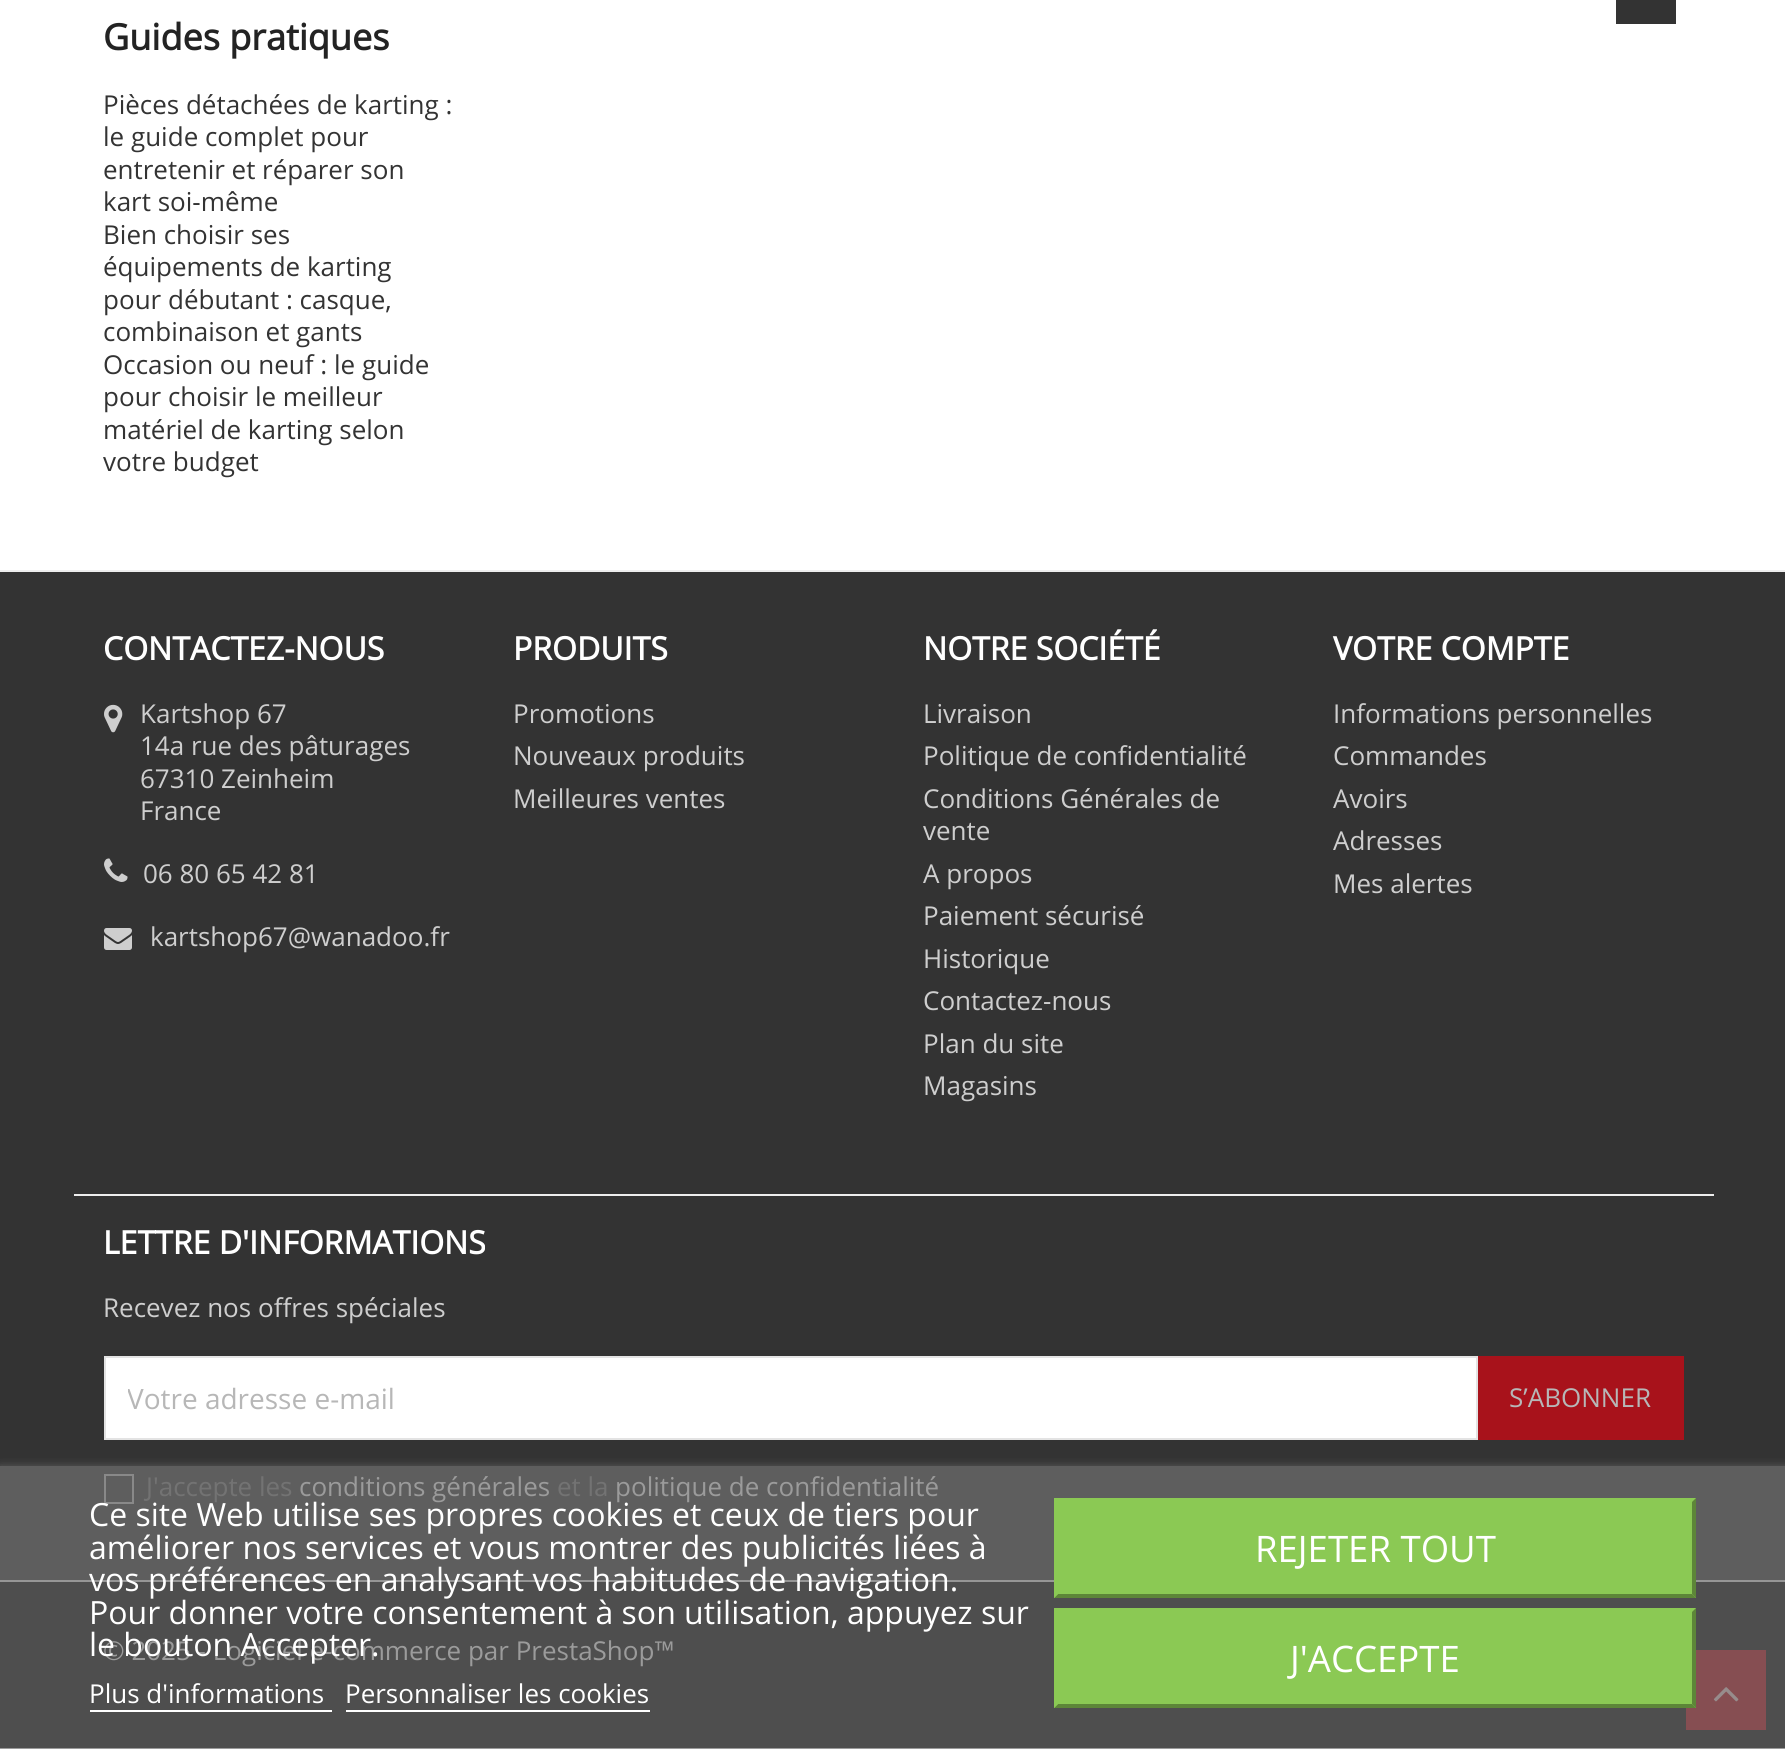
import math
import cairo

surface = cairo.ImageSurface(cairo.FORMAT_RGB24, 1785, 1749)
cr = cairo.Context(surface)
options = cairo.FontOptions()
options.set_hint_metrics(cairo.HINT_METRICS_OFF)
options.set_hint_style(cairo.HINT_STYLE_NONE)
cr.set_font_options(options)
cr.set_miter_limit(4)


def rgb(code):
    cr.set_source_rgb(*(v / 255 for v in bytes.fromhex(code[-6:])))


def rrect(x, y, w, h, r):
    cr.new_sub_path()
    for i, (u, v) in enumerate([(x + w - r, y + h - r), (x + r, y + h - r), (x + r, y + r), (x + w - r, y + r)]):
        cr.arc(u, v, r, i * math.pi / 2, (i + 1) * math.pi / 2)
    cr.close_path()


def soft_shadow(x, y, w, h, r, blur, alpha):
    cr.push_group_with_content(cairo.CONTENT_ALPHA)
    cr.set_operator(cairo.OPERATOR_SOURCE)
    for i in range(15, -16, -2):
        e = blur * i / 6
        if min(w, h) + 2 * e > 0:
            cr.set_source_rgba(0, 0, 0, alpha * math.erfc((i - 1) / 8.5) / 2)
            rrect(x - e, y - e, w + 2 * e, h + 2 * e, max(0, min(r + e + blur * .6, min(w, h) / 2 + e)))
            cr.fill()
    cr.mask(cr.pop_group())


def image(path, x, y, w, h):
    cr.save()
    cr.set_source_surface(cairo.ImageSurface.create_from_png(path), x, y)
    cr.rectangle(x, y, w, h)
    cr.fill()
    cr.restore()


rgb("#ffffff")
cr.paint()
for x, y, w, h, color in [
    (0, 1748, 1785, 1, "#9b9b9b"),
    (1616, 0, 60, 24, "#333333"),
    (0, 572, 1785, 894, "#333333"),
    (0, 1466, 1785, 114, "#5e5e5e"),
    (0, 570, 1785, 2, "#eeeeee"),
]:
    rgb(color)
    cr.rectangle(x, y, w, h)
    cr.fill()
image("img/1.png", 104, 704, 19, 29)
image("img/2.png", 104, 858, 24, 24)
image("img/3.png", 104, 928, 28, 22)
cr.rectangle(74, 1194, 1640, 2)
cr.fill()
rgb("#ffffff")
cr.rectangle(105, 1357, 1372, 82)
cr.fill_preserve()
rgb("#e3e3e3")
cr.stroke()
rgb("#a8121b")
cr.rectangle(1478, 1356, 206, 84)
cr.fill()
cr.rectangle(105, 1475, 28, 28)
rgb("#898989")
cr.stroke()
for x, y, w, h, color in [
    (0, 1582, 1785, 166, "#4e4e4e"),
    (0, 1580, 1785, 2, "#969696"),
    (1686, 1650, 80, 80, "#864e52"),
]:
    rgb(color)
    cr.rectangle(x, y, w, h)
    cr.fill()
image("img/4.png", 1713, 1687, 26, 15)
cr.save()
cr.rectangle(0, 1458, 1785, 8)
cr.clip()
rgb("#707070")
soft_shadow(0, 1468, 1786, 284, 0, 5, 1)
cr.restore()
for x, y, w, h, color in [
    (90, 1710, 242, 2, "#ffffff"),
    (346, 1710, 304, 2, "#ffffff"),
    (1054, 1498, 642, 100, "#8bc954"),
]:
    rgb(color)
    cr.rectangle(x, y, w, h)
    cr.fill()
rgb("#5d8638")
cr.new_path()
cr.move_to(1696, 1498)
cr.line_to(1696, 1598)
cr.line_to(1692, 1594)
cr.line_to(1692, 1502)
cr.close_path()
cr.fill()
cr.new_path()
cr.move_to(1696, 1598)
cr.line_to(1054, 1598)
cr.line_to(1058, 1594)
cr.line_to(1692, 1594)
cr.close_path()
cr.fill()
rgb("#8bc954")
cr.new_path()
cr.move_to(1054, 1598)
cr.line_to(1054, 1498)
cr.line_to(1058, 1502)
cr.line_to(1058, 1594)
cr.close_path()
cr.fill()
cr.rectangle(1054, 1608, 642, 100)
cr.fill()
rgb("#5d8638")
cr.new_path()
cr.move_to(1696, 1608)
cr.line_to(1696, 1708)
cr.line_to(1692, 1704)
cr.line_to(1692, 1612)
cr.close_path()
cr.fill()
cr.new_path()
cr.move_to(1696, 1708)
cr.line_to(1054, 1708)
cr.line_to(1058, 1704)
cr.line_to(1692, 1704)
cr.close_path()
cr.fill()
rgb("#8bc954")
cr.new_path()
cr.move_to(1054, 1708)
cr.line_to(1054, 1608)
cr.line_to(1058, 1612)
cr.line_to(1058, 1704)
cr.close_path()
cr.fill()
cr.select_font_face("Open Sans", cairo.FONT_SLANT_NORMAL, cairo.FONT_WEIGHT_BOLD)
cr.set_font_size(36)
rgb("#232323")
cr.move_to(103, 50)
cr.show_text("Guides pratiques")
cr.select_font_face("Open Sans")
cr.set_font_size(26)
rgb("#333333")
for x, y, s in [
    (103, 114, "Pièces détachées de karting :"),
    (103, 146, "le guide complet pour"),
    (103, 179, "entretenir et réparer son"),
    (103, 211, "kart soi-même"),
    (103, 244, "Bien choisir ses"),
    (103, 276, "équipements de karting"),
    (103, 309, "pour débutant : casque,"),
    (103, 341, "combinaison et gants"),
    (103, 374, "Occasion ou neuf : le guide"),
    (103, 406, "pour choisir le meilleur"),
    (103, 439, "matériel de karting selon"),
    (103, 471, "votre budget"),
]:
    cr.move_to(x, y)
    cr.show_text(s)
cr.select_font_face("Open Sans", cairo.FONT_SLANT_NORMAL, cairo.FONT_WEIGHT_BOLD)
cr.set_font_size(32)
rgb("#ffffff")
cr.move_to(103, 660)
cr.show_text("CONTACTEZ-NOUS")
cr.select_font_face("Open Sans")
cr.set_font_size(26)
rgb("#cecece")
for x, y, s in [
    (140, 723, "Kartshop 67"),
    (140, 755, "14a rue des pâturages"),
    (140, 788, "67310 Zeinheim"),
    (140, 820, "France"),
    (143, 883, "06 80 65 42 81"),
    (150, 946, "kartshop67@wanadoo.fr"),
]:
    cr.move_to(x, y)
    cr.show_text(s)
cr.select_font_face("Open Sans", cairo.FONT_SLANT_NORMAL, cairo.FONT_WEIGHT_BOLD)
cr.set_font_size(32)
rgb("#ffffff")
cr.move_to(513, 660)
cr.show_text("PRODUITS")
cr.select_font_face("Open Sans")
cr.set_font_size(26)
rgb("#cecece")
for x, y, s in [
    (513, 723, "Promotions"),
    (513, 765, "Nouveaux produits"),
    (513, 808, "Meilleures ventes"),
]:
    cr.move_to(x, y)
    cr.show_text(s)
cr.select_font_face("Open Sans", cairo.FONT_SLANT_NORMAL, cairo.FONT_WEIGHT_BOLD)
cr.set_font_size(32)
rgb("#ffffff")
cr.move_to(923, 660)
cr.show_text("NOTRE SOCIÉTÉ")
cr.select_font_face("Open Sans")
cr.set_font_size(26)
rgb("#cecece")
for x, y, s in [
    (923, 723, "Livraison"),
    (923, 765, "Politique de confidentialité"),
    (923, 808, "Conditions Générales de"),
    (923, 840, "vente"),
    (923, 883, "A propos"),
    (923, 925, "Paiement sécurisé"),
    (923, 968, "Historique"),
    (923, 1010, "Contactez-nous"),
    (923, 1053, "Plan du site"),
    (923, 1095, "Magasins"),
]:
    cr.move_to(x, y)
    cr.show_text(s)
cr.select_font_face("Open Sans", cairo.FONT_SLANT_NORMAL, cairo.FONT_WEIGHT_BOLD)
cr.set_font_size(32)
rgb("#ffffff")
cr.move_to(1333, 660)
cr.show_text("VOTRE COMPTE")
cr.select_font_face("Open Sans")
cr.set_font_size(26)
rgb("#cecece")
for x, y, s in [
    (1333, 723, "Informations personnelles"),
    (1333, 765, "Commandes"),
    (1333, 808, "Avoirs"),
    (1333, 850, "Adresses"),
    (1333, 893, "Mes alertes"),
]:
    cr.move_to(x, y)
    cr.show_text(s)
cr.select_font_face("Open Sans", cairo.FONT_SLANT_NORMAL, cairo.FONT_WEIGHT_BOLD)
cr.set_font_size(32)
rgb("#ffffff")
cr.move_to(103, 1254)
cr.show_text("LETTRE D'INFORMATIONS")
cr.select_font_face("Open Sans")
cr.set_font_size(26)
rgb("#cecece")
cr.move_to(103, 1317)
cr.show_text("Recevez nos offres spéciales")
cr.save()
cr.rectangle(128, 1378, 1326, 38)
cr.clip()
cr.set_font_size(28)
rgb("#b7b7b7")
cr.move_to(127, 1409)
cr.show_text("Votre adresse e-mail")
cr.restore()
rgb("#b7b7b7")
cr.move_to(1509, 1407)
cr.show_text("S’ABONNER")
rgb("#737373")
cr.move_to(146, 1496)
cr.show_text("J'accepte les")
rgb("#9b9b9b")
cr.move_to(299, 1496)
cr.show_text("conditions générales")
rgb("#737373")
cr.move_to(557, 1496)
cr.show_text("et la")
rgb("#9b9b9b")
cr.move_to(615, 1496)
cr.show_text("politique de confidentialité")
cr.set_font_size(32)
rgb("#ffffff")
for x, y, s in [
    (89, 1526, "Ce site Web utilise ses propres cookies et ceux de tiers pour"),
    (89, 1559, "améliorer nos services et vous montrer des publicités liées à"),
    (89, 1591, "vos préférences en analysant vos habitudes de navigation."),
    (89, 1624, "Pour donner votre consentement à son utilisation, appuyez sur"),
]:
    cr.move_to(x, y)
    cr.show_text(s)
cr.set_font_size(26)
cr.move_to(89, 1703)
cr.show_text("Plus d'informations")
cr.move_to(345, 1703)
cr.show_text("Personnaliser les cookies")
cr.set_font_size(36.5)
cr.move_to(1255, 1562)
cr.show_text("REJETER TOUT")
cr.move_to(1290, 1672)
cr.show_text("J'ACCEPTE")
cr.set_font_size(26)
rgb("#9b9b9b")
cr.move_to(103, 1660)
cr.show_text("© 2025 - Logiciel e-commerce par PrestaShop™")
cr.set_font_size(32)
rgb("#ffffff")
cr.move_to(89, 1656)
cr.show_text("le bouton Accepter.")
surface.write_to_png("page.png")
